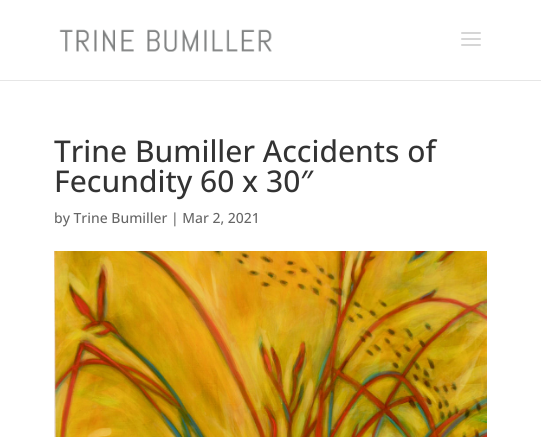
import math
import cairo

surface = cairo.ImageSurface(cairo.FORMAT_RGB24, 541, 437)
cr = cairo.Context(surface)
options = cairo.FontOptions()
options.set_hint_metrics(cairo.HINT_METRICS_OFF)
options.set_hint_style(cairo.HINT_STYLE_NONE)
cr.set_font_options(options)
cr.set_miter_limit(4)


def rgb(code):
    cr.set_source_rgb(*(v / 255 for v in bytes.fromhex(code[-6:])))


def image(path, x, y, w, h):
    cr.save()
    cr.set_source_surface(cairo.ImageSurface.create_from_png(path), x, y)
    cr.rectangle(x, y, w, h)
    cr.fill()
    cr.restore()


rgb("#ffffff")
cr.paint()
rgb("#e6e6e6")
cr.rectangle(0, 80, 541, 1)
cr.fill()
image("img/1.png", 59, 29, 213, 23)
image("img/2.png", 461, 32, 20, 14)
image("img/3.png", 54, 251, 433, 186)
cr.select_font_face("Open Sans Medium")
cr.set_font_size(30)
rgb("#333333")
cr.move_to(54, 162)
cr.show_text("Trine Bumiller Accidents of")
cr.move_to(54, 192)
cr.show_text("Fecundity 60 x 30″")
cr.set_font_size(14)
rgb("#666666")
cr.move_to(54, 223)
cr.show_text("by Trine Bumiller | Mar 2, 2021")
surface.write_to_png("page.png")
